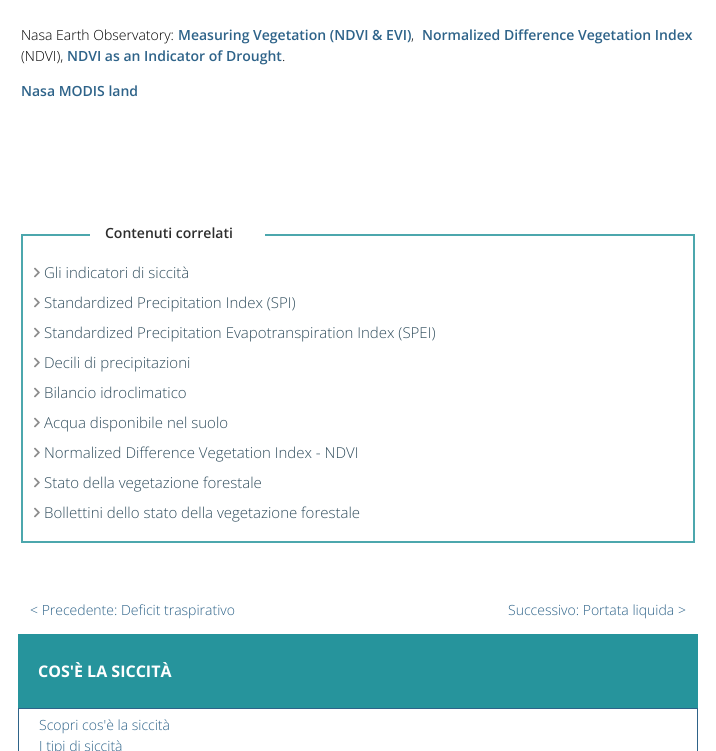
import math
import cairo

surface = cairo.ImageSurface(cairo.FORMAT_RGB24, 716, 751)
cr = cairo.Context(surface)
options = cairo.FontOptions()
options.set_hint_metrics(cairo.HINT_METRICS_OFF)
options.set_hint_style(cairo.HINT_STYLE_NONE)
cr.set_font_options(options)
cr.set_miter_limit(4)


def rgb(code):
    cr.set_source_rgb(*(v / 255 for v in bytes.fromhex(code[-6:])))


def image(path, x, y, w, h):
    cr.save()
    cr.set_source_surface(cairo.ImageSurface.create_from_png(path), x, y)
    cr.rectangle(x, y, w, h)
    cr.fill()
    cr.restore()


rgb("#ffffff")
cr.paint()
cr.rectangle(22, 235, 672, 307)
rgb("#4ca7ad")
cr.stroke()
rgb("#ffffff")
cr.rectangle(90, 234, 175, 2)
cr.fill()
image("img/1.png", 34, 267, 6, 11)
image("img/1.png", 34, 297, 6, 11)
image("img/1.png", 34, 327, 6, 11)
image("img/1.png", 34, 357, 6, 11)
image("img/1.png", 34, 387, 6, 11)
image("img/1.png", 34, 417, 6, 11)
image("img/1.png", 34, 447, 6, 11)
image("img/1.png", 34, 477, 6, 11)
image("img/1.png", 34, 507, 6, 11)
rgb("#26949c")
cr.rectangle(18, 634, 680, 74)
cr.fill()
cr.rectangle(18.5, 708.5, 679, 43)
rgb("#2e6389")
cr.set_line_width(1)
cr.stroke()
cr.select_font_face("Open Sans Light")
cr.set_font_size(14)
rgb("#000000")
cr.move_to(21, 40)
cr.show_text("Nasa Earth Observatory:")
cr.select_font_face("Open Sans SemiBold")
rgb("#2e6389")
cr.move_to(178, 40)
cr.show_text("Measuring Vegetation (NDVI & EVI)")
cr.select_font_face("Open Sans Light")
rgb("#000000")
cr.move_to(411, 40)
cr.show_text(",")
cr.select_font_face("Open Sans SemiBold")
rgb("#2e6389")
cr.move_to(422, 40)
cr.show_text("Normalized Difference Vegetation Index")
cr.select_font_face("Open Sans Light")
rgb("#000000")
cr.move_to(21, 61)
cr.show_text("(NDVI),")
cr.select_font_face("Open Sans SemiBold")
rgb("#2e6389")
cr.move_to(67, 61)
cr.show_text("NDVI as an Indicator of Drought")
cr.select_font_face("Open Sans Light")
rgb("#000000")
cr.move_to(282, 61)
cr.show_text(".")
cr.select_font_face("Open Sans SemiBold")
rgb("#2e6389")
cr.move_to(21, 96)
cr.show_text("Nasa MODIS land")
rgb("#2d2d2d")
cr.move_to(105, 238)
cr.show_text("Contenuti correlati")
cr.select_font_face("Open Sans Light")
cr.set_font_size(15)
rgb("#304d5d")
for x, y, s in [
    (44, 278, "Gli indicatori di siccità"),
    (44, 308, "Standardized Precipitation Index (SPI)"),
    (44, 338, "Standardized Precipitation Evapotranspiration Index (SPEI)"),
    (44, 368, "Decili di precipitazioni"),
    (44, 398, "Bilancio idroclimatico"),
    (44, 428, "Acqua disponibile nel suolo"),
    (44, 458, "Normalized Difference Vegetation Index - NDVI"),
    (44, 488, "Stato della vegetazione forestale"),
    (44, 518, "Bollettini dello stato della vegetazione forestale"),
]:
    cr.move_to(x, y)
    cr.show_text(s)
cr.set_font_size(14)
rgb("#2e6389")
cr.move_to(30, 615)
cr.show_text("< Precedente: Deficit traspirativo")
cr.move_to(508, 615)
cr.show_text("Successivo: Portata liquida >")
cr.select_font_face("Open Sans", cairo.FONT_SLANT_NORMAL, cairo.FONT_WEIGHT_BOLD)
cr.set_font_size(16)
rgb("#ffffff")
cr.move_to(38, 677)
cr.show_text("COS'È LA SICCITÀ")
cr.select_font_face("Open Sans Light")
cr.set_font_size(14)
rgb("#2e6389")
cr.move_to(39, 730)
cr.show_text("Scopri cos'è la siccità")
cr.move_to(39, 751)
cr.show_text("I tipi di siccità")
surface.write_to_png("page.png")
